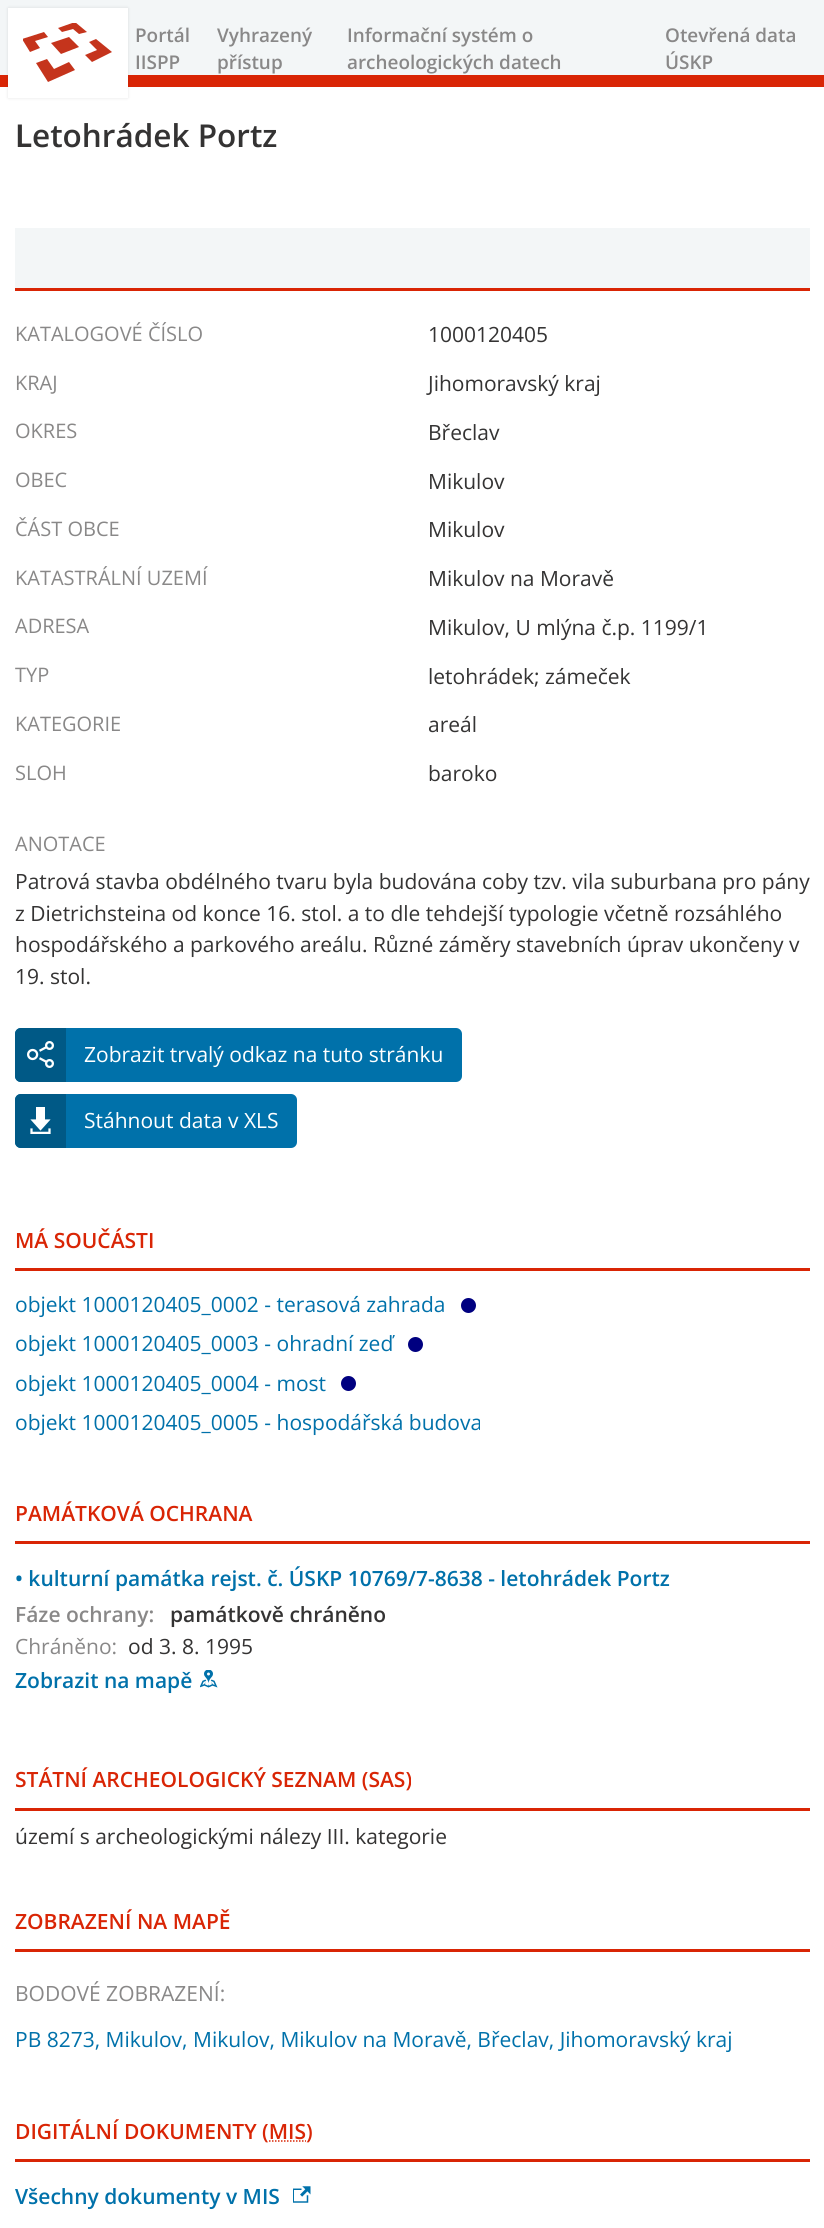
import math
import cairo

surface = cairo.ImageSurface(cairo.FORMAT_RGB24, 824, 2228)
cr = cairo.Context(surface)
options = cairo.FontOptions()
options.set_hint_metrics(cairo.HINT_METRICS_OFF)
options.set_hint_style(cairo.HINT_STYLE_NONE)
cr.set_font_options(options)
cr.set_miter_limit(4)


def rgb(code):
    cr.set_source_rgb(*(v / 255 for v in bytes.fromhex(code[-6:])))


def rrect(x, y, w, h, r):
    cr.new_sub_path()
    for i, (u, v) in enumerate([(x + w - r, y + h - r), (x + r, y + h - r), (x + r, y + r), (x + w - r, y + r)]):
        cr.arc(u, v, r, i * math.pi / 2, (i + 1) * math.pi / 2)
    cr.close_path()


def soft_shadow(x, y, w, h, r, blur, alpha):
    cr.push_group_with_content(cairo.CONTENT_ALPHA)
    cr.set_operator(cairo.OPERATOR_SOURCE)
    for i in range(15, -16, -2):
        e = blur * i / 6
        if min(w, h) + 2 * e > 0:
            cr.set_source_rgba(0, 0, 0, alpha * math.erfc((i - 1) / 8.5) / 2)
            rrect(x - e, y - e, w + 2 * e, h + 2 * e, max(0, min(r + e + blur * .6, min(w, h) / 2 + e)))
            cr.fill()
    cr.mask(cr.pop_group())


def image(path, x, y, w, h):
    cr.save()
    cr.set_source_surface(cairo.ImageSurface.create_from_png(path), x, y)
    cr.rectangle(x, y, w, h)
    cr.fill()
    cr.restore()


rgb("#ffffff")
cr.paint()
rgb("#f3f6f7")
cr.rectangle(0, 0, 824, 75)
cr.fill()
rgb("#d92505")
cr.rectangle(0, 75, 824, 12)
cr.fill()
rgb("#000000")
soft_shadow(8, 8, 120, 90, 0, 1.5, 0.1)
rgb("#ffffff")
cr.rectangle(8, 8, 120, 90)
cr.fill()
cr.save()
cr.rectangle(23, 23, 90, 60)
cr.clip()
rgb("#c5341c")
cr.new_path()
cr.move_to(35, 41)
cr.line_to(40, 48)
cr.line_to(30, 52)
cr.line_to(22, 39)
cr.line_to(44, 32)
cr.line_to(48, 37)
cr.close_path()
cr.move_to(54, 69)
cr.line_to(47, 59)
cr.line_to(36, 63)
cr.line_to(48, 82)
cr.line_to(75, 70)
cr.line_to(69, 62)
cr.close_path()
cr.move_to(96, 39)
cr.line_to(89, 42)
cr.line_to(97, 50)
cr.line_to(85, 55)
cr.line_to(92, 62)
cr.line_to(112, 52)
cr.close_path()
cr.move_to(58, 28)
cr.line_to(62, 32)
cr.line_to(73, 29)
cr.line_to(79, 34)
cr.line_to(87, 32)
cr.line_to(75, 22)
cr.close_path()
cr.move_to(79, 47)
cr.line_to(69, 37)
cr.line_to(51, 43)
cr.line_to(61, 54)
cr.close_path()
cr.fill()
cr.restore()
rgb("#f3f6f7")
cr.rectangle(15, 228, 795, 60)
cr.fill()
rgb("#d92505")
cr.rectangle(15, 288, 795, 3)
cr.fill()
rgb("#0071aa")
rrect(15, 1028, 447, 54, 6)
cr.fill()
rgb("#005986")
cr.new_path()
cr.move_to(21, 1028)
cr.line_to(66, 1028)
cr.line_to(66, 1082)
cr.line_to(21, 1082)
cr.curve_to(17.5, 1082, 15, 1079.5, 15, 1076)
cr.line_to(15, 1034)
cr.curve_to(15, 1030.5, 17.5, 1028, 21, 1028)
cr.close_path()
cr.fill()
image("img/1.png", 27, 1041, 27, 27)
rgb("#0071aa")
rrect(15, 1094, 282, 54, 6)
cr.fill()
rgb("#005986")
cr.new_path()
cr.move_to(21, 1094)
cr.line_to(66, 1094)
cr.line_to(66, 1148)
cr.line_to(21, 1148)
cr.curve_to(17.5, 1148, 15, 1145.5, 15, 1142)
cr.line_to(15, 1100)
cr.curve_to(15, 1096.5, 17.5, 1094, 21, 1094)
cr.close_path()
cr.fill()
image("img/2.png", 30, 1107, 21, 27)
rgb("#d92505")
cr.rectangle(15, 1268, 795, 3)
cr.fill()
rgb("#000080")
cr.arc(468.5, 1305.5, 7.5, 0, 2 * math.pi)
cr.fill()
cr.arc(415.5, 1344.5, 7.5, 0, 2 * math.pi)
cr.fill()
cr.arc(348.5, 1383.5, 7.5, 0, 2 * math.pi)
cr.fill()
rgb("#d92505")
cr.rectangle(15, 1541, 795, 3)
cr.fill()
image("img/3.png", 200, 1670, 18, 18)
for x, y, w, h, color in [
    (15, 1808, 795, 3, "#d92505"),
    (15, 1949, 795, 3, "#d92505"),
    (15, 2159, 795, 3, "#d92505"),
]:
    rgb(color)
    cr.rectangle(x, y, w, h)
    cr.fill()
cr.new_path()
cr.move_to(269, 2141)
cr.line_to(306, 2141)
cr.set_line_width(1.5)
cr.set_dash([1.5, 1.5])
cr.stroke()
image("img/4.png", 293, 2186, 18, 17)
cr.select_font_face("Open Sans SemiBold")
cr.set_font_size(18.9)
rgb("#898888")
for x, y, s in [
    (135, 42, "Portál"),
    (135, 69, "IISPP"),
    (217, 42, "Vyhrazený"),
    (217, 69, "přístup"),
    (347, 42, "Informační systém o"),
    (347, 69, "archeologických datech"),
    (665, 42, "Otevřená data"),
    (665, 69, "ÚSKP"),
]:
    cr.move_to(x, y)
    cr.show_text(s)
cr.select_font_face("Noto Sans SemiBold")
cr.set_font_size(31.5)
rgb("#343333")
cr.move_to(15, 147)
cr.show_text("L")
cr.select_font_face("Open Sans SemiBold")
cr.move_to(32, 147)
cr.show_text("etohrádek Portz")
cr.select_font_face("Open Sans")
cr.set_font_size(20)
rgb("#898888")
cr.move_to(15, 341)
cr.show_text("KATALOGOVÉ ČÍSLO")
cr.set_font_size(21)
rgb("#343333")
cr.move_to(428, 342)
cr.show_text("1000120405")
cr.set_font_size(20)
rgb("#898888")
cr.move_to(15, 390)
cr.show_text("KRAJ")
cr.set_font_size(21)
rgb("#343333")
cr.move_to(428, 391)
cr.show_text("Jihomoravský kraj")
cr.set_font_size(20)
rgb("#898888")
cr.move_to(15, 438)
cr.show_text("OKRES")
cr.set_font_size(21)
rgb("#343333")
cr.move_to(428, 440)
cr.show_text("Břeclav")
cr.set_font_size(20)
rgb("#898888")
cr.move_to(15, 487)
cr.show_text("OBEC")
cr.set_font_size(21)
rgb("#343333")
cr.move_to(428, 489)
cr.show_text("Mikulov")
cr.set_font_size(20)
rgb("#898888")
cr.move_to(15, 536)
cr.show_text("ČÁST OBCE")
cr.set_font_size(21)
rgb("#343333")
cr.move_to(428, 537)
cr.show_text("Mikulov")
cr.set_font_size(20)
rgb("#898888")
cr.move_to(15, 585)
cr.show_text("KATASTRÁLNÍ UZEMÍ")
cr.set_font_size(21)
rgb("#343333")
cr.move_to(428, 586)
cr.show_text("Mikulov na Moravě")
cr.set_font_size(20)
rgb("#898888")
cr.move_to(15, 633)
cr.show_text("ADRESA")
cr.set_font_size(21)
rgb("#343333")
cr.move_to(428, 635)
cr.show_text("Mikulov, U mlýna č.p. 1199/1")
cr.set_font_size(20)
rgb("#898888")
cr.move_to(15, 682)
cr.show_text("TYP")
cr.set_font_size(21)
rgb("#343333")
cr.move_to(428, 684)
cr.show_text("letohrádek; zámeček")
cr.set_font_size(20)
rgb("#898888")
cr.move_to(15, 731)
cr.show_text("KATEGORIE")
cr.set_font_size(21)
rgb("#343333")
cr.move_to(428, 732)
cr.show_text("areál")
cr.set_font_size(20)
rgb("#898888")
cr.move_to(15, 780)
cr.show_text("SLOH")
cr.set_font_size(21)
rgb("#343333")
cr.move_to(428, 781)
cr.show_text("baroko")
cr.set_font_size(20)
rgb("#898888")
cr.move_to(15, 851)
cr.show_text("ANOTACE")
cr.set_font_size(21)
rgb("#343333")
for x, y, s in [
    (15, 889, "Patrová stavba obdélného tvaru byla budována coby tzv. vila suburbana pro pány"),
    (15, 921, "z Dietrichsteina od konce 16. stol. a to dle tehdejší typologie včetně rozsáhlého"),
    (15, 952, "hospodářského a parkového areálu. Různé záměry stavebních úprav ukončeny v"),
    (15, 984, "19. stol."),
]:
    cr.move_to(x, y)
    cr.show_text(s)
rgb("#ffffff")
cr.move_to(84, 1062)
cr.show_text("Zobrazit trvalý odkaz na tuto stránku")
cr.move_to(84, 1128)
cr.show_text("Stáhnout data v XLS")
cr.select_font_face("Open Sans SemiBold")
rgb("#d92505")
cr.move_to(15, 1248)
cr.show_text("MÁ SOUČÁSTI")
cr.select_font_face("Open Sans")
rgb("#0071aa")
for x, y, s in [
    (15, 1312, "objekt 1000120405_0002 - terasová zahrada"),
    (15, 1351, "objekt 1000120405_0003 - ohradní zeď"),
    (15, 1391, "objekt 1000120405_0004 - most"),
    (15, 1430, "objekt 1000120405_0005 - hospodářská budova"),
]:
    cr.move_to(x, y)
    cr.show_text(s)
cr.select_font_face("Open Sans SemiBold")
rgb("#d92505")
cr.move_to(15, 1521)
cr.show_text("PAMÁTKOVÁ OCHRANA")
rgb("#0071aa")
cr.move_to(15, 1586)
cr.show_text("• kulturní památka rejst. č. ÚSKP 10769/7-8638 - letohrádek Portz")
rgb("#898888")
cr.move_to(15, 1622)
cr.show_text("Fáze ochrany:")
rgb("#343333")
cr.move_to(170, 1622)
cr.show_text("památkově chráněno")
cr.select_font_face("Open Sans")
rgb("#898888")
cr.move_to(15, 1654)
cr.show_text("Chráněno:")
rgb("#343333")
cr.move_to(128, 1654)
cr.show_text("od 3. 8. 1995")
cr.select_font_face("Open Sans SemiBold")
rgb("#0071aa")
cr.move_to(15, 1688)
cr.show_text("Zobrazit na mapě")
rgb("#d92505")
cr.move_to(15, 1787)
cr.show_text("STÁTNÍ ARCHEOLOGICKÝ SEZNAM (SAS)")
cr.select_font_face("Open Sans")
rgb("#343333")
cr.move_to(15, 1844)
cr.show_text("území s archeologickými nálezy III. kategorie")
cr.select_font_face("Open Sans SemiBold")
rgb("#d92505")
cr.move_to(15, 1929)
cr.show_text("ZOBRAZENÍ NA MAPĚ")
cr.select_font_face("Open Sans")
rgb("#898888")
cr.move_to(15, 2001)
cr.show_text("BODOVÉ ZOBRAZENÍ:")
rgb("#0071aa")
cr.move_to(15, 2047)
cr.show_text("PB 8273, Mikulov, Mikulov, Mikulov na Moravě, Břeclav, Jihomoravský kraj")
cr.select_font_face("Open Sans SemiBold")
rgb("#d92505")
cr.move_to(15, 2139)
cr.show_text("DIGITÁLNÍ DOKUMENTY (MIS)")
rgb("#0071aa")
cr.move_to(15, 2204)
cr.show_text("Všechny dokumenty v MIS")
surface.write_to_png("page.png")
